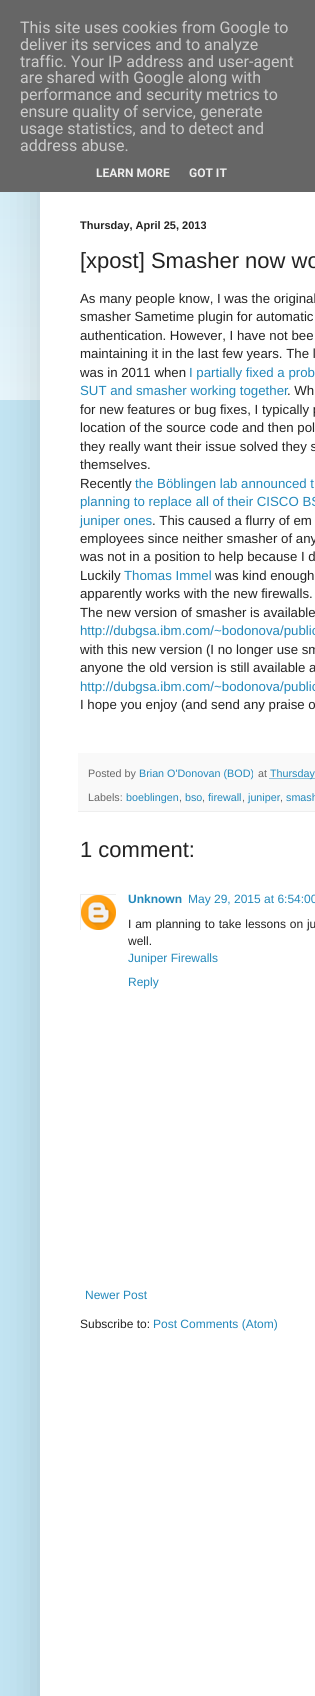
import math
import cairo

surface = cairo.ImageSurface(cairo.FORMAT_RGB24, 315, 1696)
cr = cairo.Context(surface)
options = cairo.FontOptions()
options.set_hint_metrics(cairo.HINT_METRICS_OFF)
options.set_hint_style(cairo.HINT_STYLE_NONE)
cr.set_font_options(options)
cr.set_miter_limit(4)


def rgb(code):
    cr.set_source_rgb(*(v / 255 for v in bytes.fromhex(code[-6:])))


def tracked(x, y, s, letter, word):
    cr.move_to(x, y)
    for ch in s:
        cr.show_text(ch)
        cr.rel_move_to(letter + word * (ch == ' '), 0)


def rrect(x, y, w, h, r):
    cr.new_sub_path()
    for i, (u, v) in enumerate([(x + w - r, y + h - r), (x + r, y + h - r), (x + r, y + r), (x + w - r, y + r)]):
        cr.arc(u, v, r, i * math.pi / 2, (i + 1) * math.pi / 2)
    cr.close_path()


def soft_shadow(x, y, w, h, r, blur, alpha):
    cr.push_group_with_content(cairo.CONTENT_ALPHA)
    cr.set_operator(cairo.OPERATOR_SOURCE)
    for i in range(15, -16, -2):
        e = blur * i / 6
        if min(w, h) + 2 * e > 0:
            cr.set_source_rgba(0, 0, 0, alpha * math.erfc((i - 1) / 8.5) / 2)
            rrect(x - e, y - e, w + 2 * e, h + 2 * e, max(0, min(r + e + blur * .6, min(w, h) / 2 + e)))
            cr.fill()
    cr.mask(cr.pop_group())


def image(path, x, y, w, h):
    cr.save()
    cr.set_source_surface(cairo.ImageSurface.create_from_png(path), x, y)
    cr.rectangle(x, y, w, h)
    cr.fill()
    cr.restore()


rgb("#c2e4f2")
cr.paint()
image("img/1.png", 0, 192, 40, 208)
rgb("#000000")
soft_shadow(40, 30, 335, 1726, 0, 20, 0.15)
for x, y, w, h, color in [
    (0, 0, 315, 192, "#666666"),
    (40, 192, 275, 1504, "#ffffff"),
    (78, 753, 237, 58, "#f9f9f9"),
    (78, 811, 237, 1, "#eeeeee"),
]:
    rgb(color)
    cr.rectangle(x, y, w, h)
    cr.fill()
cr.new_path()
cr.move_to(269.5, 778.5)
cr.line_to(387, 778.5)
rgb("#2288bb")
cr.set_line_width(1)
cr.set_dash([1, 1])
cr.stroke()
cr.save()
cr.rectangle(80, 894, 36, 36)
cr.clip()
cr.rectangle(80.5, 894.5, 36, 36)
rgb("#eeeeee")
cr.set_dash([])
cr.stroke()
cr.restore()
image("img/2.png", 81, 895, 35, 35)
cr.select_font_face("Roboto")
cr.set_font_size(16)
rgb("#cccccc")
for x, y, s in [
    (20, 33, "This site uses cookies from Google to"),
    (20, 50, "deliver its services and to analyze"),
    (20, 67, "traffic. Your IP address and user-agent"),
    (20, 83, "are shared with Google along with"),
    (20, 100, "performance and security metrics to"),
    (20, 117, "ensure quality of service, generate"),
    (20, 134, "usage statistics, and to detect and"),
    (20, 151, "address abuse."),
]:
    cr.move_to(x, y)
    cr.show_text(s)
cr.select_font_face("Roboto", cairo.FONT_SLANT_NORMAL, cairo.FONT_WEIGHT_BOLD)
cr.set_font_size(12)
rgb("#eeeeee")
cr.move_to(96, 177)
cr.show_text("LEARN MORE")
cr.move_to(189, 177)
cr.show_text("GOT IT")
cr.select_font_face("Liberation Sans", cairo.FONT_SLANT_NORMAL, cairo.FONT_WEIGHT_BOLD)
cr.set_font_size(11)
rgb("#222222")
cr.move_to(80, 229)
cr.show_text("Thursday, April 25, 2013")
cr.select_font_face("Liberation Sans")
cr.set_font_size(22)
cr.move_to(80, 268)
cr.show_text("[xpost] Smasher now wo")
cr.set_font_size(13.25)
for x, y, s in [
    (80, 303, "As many people know, I was the original"),
    (80, 321, "smasher Sametime plugin for automatic"),
    (80, 340, "authentication. However, I have not bee"),
    (80, 358, "maintaining it in the last few years. The l"),
    (80, 377, "was in 2011 when"),
]:
    cr.move_to(x, y)
    cr.show_text(s)
rgb("#2288bb")
cr.move_to(189, 377)
cr.show_text("I partially fixed a prob")
cr.move_to(80, 395)
cr.show_text("SUT and smasher working together")
rgb("#222222")
for x, y, s in [
    (287, 395, ". Wh"),
    (80, 414, "for new features or bug fixes, I typically p"),
    (80, 432, "location of the source code and then pol"),
    (80, 451, "they really want their issue solved they s"),
    (80, 469, "themselves."),
    (80, 488, "Recently"),
]:
    cr.move_to(x, y)
    cr.show_text(s)
rgb("#2288bb")
for x, y, s in [
    (135, 488, "the Böblingen lab announced t"),
    (80, 506, "planning to replace all of their CISCO BS"),
    (80, 525, "juniper ones"),
]:
    cr.move_to(x, y)
    cr.show_text(s)
rgb("#222222")
for x, y, s in [
    (152, 525, ". This caused a flurry of em"),
    (80, 543, "employees since neither smasher of any"),
    (80, 561, "was not in a position to help because I d"),
    (80, 580, "Luckily"),
]:
    cr.move_to(x, y)
    cr.show_text(s)
rgb("#2288bb")
cr.move_to(124, 580)
cr.show_text("Thomas Immel")
rgb("#222222")
for x, y, s in [
    (215, 580, "was kind enough"),
    (80, 598, "apparently works with the new firewalls."),
    (80, 617, "The new version of smasher is available"),
]:
    cr.move_to(x, y)
    cr.show_text(s)
rgb("#2288bb")
cr.move_to(80, 635)
cr.show_text("http://dubgsa.ibm.com/~bodonova/public")
rgb("#222222")
cr.move_to(80, 654)
cr.show_text("with this new version (I no longer use sm")
cr.move_to(80, 672)
cr.show_text("anyone the old version is still available a")
rgb("#2288bb")
cr.move_to(80, 691)
cr.show_text("http://dubgsa.ibm.com/~bodonova/public")
rgb("#222222")
cr.move_to(80, 709)
cr.show_text("I hope you enjoy (and send any praise o")
cr.set_font_size(10.75)
rgb("#666666")
cr.move_to(88, 777)
cr.show_text("Posted by")
rgb("#2288bb")
cr.move_to(139, 777)
cr.show_text("Brian O'Donovan (BOD)")
rgb("#666666")
cr.move_to(258, 777)
cr.show_text("at")
rgb("#2288bb")
cr.move_to(270, 777)
cr.show_text("Thursday")
rgb("#666666")
cr.move_to(88, 801)
cr.show_text("Labels:")
rgb("#2288bb")
cr.move_to(126, 801)
cr.show_text("boeblingen")
rgb("#666666")
cr.move_to(179, 801)
cr.show_text(",")
rgb("#2288bb")
cr.move_to(185, 801)
cr.show_text("bso")
rgb("#666666")
cr.move_to(202, 801)
cr.show_text(",")
rgb("#2288bb")
cr.move_to(208, 801)
cr.show_text("firewall")
rgb("#666666")
cr.move_to(242, 801)
cr.show_text(",")
rgb("#2288bb")
cr.move_to(248, 801)
cr.show_text("juniper")
rgb("#666666")
cr.move_to(280, 801)
cr.show_text(",")
rgb("#2288bb")
cr.move_to(286, 801)
cr.show_text("smash")
cr.set_font_size(22)
rgb("#222222")
cr.move_to(80, 857)
cr.show_text("1 comment:")
cr.select_font_face("Liberation Sans", cairo.FONT_SLANT_NORMAL, cairo.FONT_WEIGHT_BOLD)
cr.set_font_size(12)
rgb("#2288bb")
cr.move_to(128, 903)
cr.show_text("Unknown")
cr.select_font_face("Liberation Sans")
cr.move_to(188, 903)
cr.show_text("May 29, 2015 at 6:54:00")
rgb("#222222")
tracked(128, 928, "I am planning to take lessons on ju", 0, 0.5)
cr.move_to(128, 945)
cr.show_text("well.")
rgb("#2288bb")
for x, y, s in [
    (128, 962, "Juniper Firewalls"),
    (128, 986, "Reply"),
    (85, 1299, "Newer Post"),
]:
    cr.move_to(x, y)
    cr.show_text(s)
rgb("#222222")
cr.move_to(80, 1328)
cr.show_text("Subscribe to:")
rgb("#2288bb")
cr.move_to(153, 1328)
cr.show_text("Post Comments (Atom)")
surface.write_to_png("page.png")
